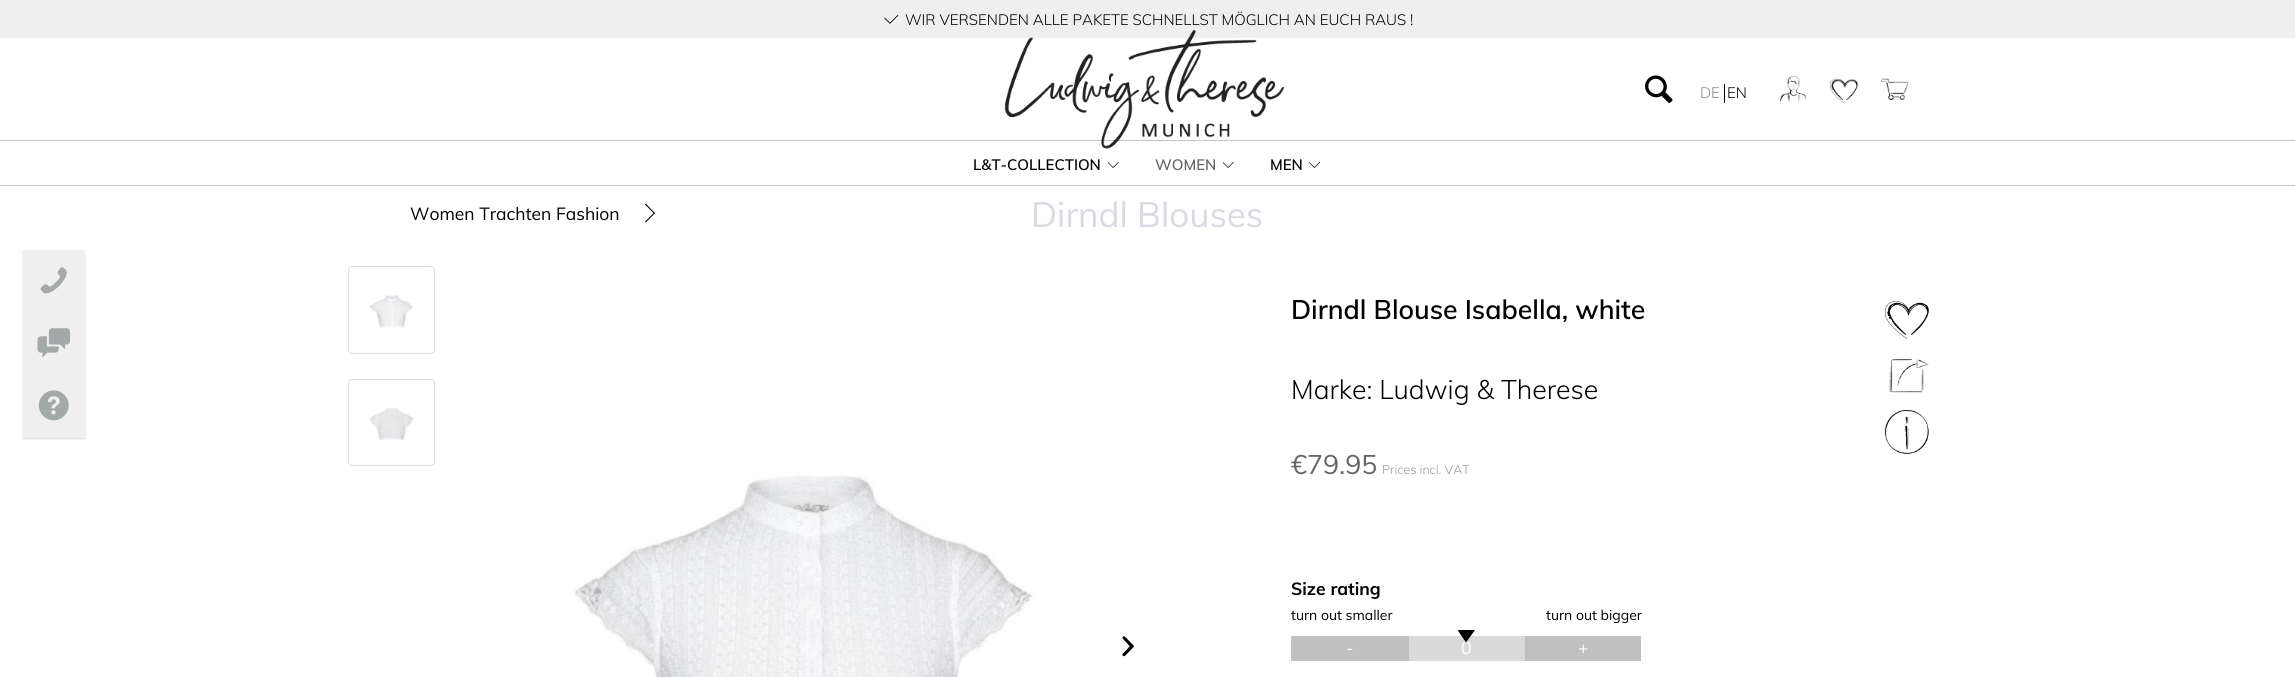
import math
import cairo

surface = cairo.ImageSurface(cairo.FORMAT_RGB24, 2295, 677)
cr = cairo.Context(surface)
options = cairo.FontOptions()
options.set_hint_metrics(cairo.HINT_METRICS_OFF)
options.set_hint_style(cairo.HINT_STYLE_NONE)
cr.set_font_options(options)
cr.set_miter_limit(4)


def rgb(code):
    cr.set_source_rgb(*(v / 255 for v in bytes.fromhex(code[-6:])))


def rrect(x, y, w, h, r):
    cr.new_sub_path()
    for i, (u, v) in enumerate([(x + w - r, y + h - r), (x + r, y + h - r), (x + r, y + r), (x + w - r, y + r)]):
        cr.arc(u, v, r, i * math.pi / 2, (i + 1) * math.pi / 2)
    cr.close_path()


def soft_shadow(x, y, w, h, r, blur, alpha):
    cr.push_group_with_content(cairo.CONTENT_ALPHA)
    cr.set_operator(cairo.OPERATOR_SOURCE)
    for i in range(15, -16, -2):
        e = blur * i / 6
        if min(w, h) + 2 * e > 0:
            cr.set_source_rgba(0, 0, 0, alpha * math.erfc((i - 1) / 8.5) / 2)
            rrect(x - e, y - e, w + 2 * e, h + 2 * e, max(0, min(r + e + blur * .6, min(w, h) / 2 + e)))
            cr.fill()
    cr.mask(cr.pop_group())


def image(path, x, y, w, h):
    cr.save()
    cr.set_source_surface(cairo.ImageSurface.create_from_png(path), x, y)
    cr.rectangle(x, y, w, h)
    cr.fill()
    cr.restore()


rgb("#ffffff")
cr.paint()
rgb("#000000")
soft_shadow(23, 251, 62, 188, 0, 1, 0.15)
rgb("#f0efef")
cr.rectangle(23, 250, 62, 188)
cr.fill()
image("img/1.png", 40, 267, 27, 27)
image("img/2.png", 37, 328, 33, 30)
image("img/3.png", 38, 390, 31, 31)
cr.rectangle(0, 0, 2295, 38)
cr.fill()
image("img/4.png", 884, 15, 15, 9)
rgb("#c3c4c4")
cr.rectangle(0, 140, 2295, 1)
cr.fill()
image("img/5.png", 1004, 29, 281, 120)
image("img/6.png", 1645, 75, 28, 28)
rgb("#000000")
cr.rectangle(1724, 84, 1, 19)
cr.fill()
image("img/7.png", 1780, 76, 27, 27)
image("img/8.png", 1830, 78, 28, 25)
image("img/9.png", 1881, 78, 28, 22)
rgb("#c3c4c4")
cr.rectangle(0, 185, 2295, 1)
cr.fill()
image("img/10.png", 1108, 162, 11, 6)
image("img/10.png", 1223, 162, 11, 6)
image("img/11.png", 1309, 162, 11, 6)
image("img/12.png", 645, 204, 10, 19)
rrect(348.5, 266.5, 86, 87, 3.5)
rgb("#dadae5")
cr.set_line_width(1)
cr.stroke()
image("img/13.png", 369, 295, 44, 33)
rrect(348.5, 379.5, 86, 86, 3.5)
cr.stroke()
image("img/14.png", 369, 407, 45, 34)
image("img/15.png", 574, 475, 460, 202)
image("img/16.png", 1122, 636, 12, 21)
image("img/17.png", 1885, 301, 44, 38)
image("img/18.png", 1889, 359, 40, 34)
image("img/19.png", 1885, 410, 44, 44)
for x, y, w, h, color in [
    (1291, 636, 118, 25, "#c0c0c0"),
    (1409, 636, 116, 25, "#dadada"),
    (1525, 636, 116, 25, "#c0c0c0"),
]:
    rgb(color)
    cr.rectangle(x, y, w, h)
    cr.fill()
cr.select_font_face("Muli Light")
cr.set_font_size(15)
rgb("#000000")
cr.move_to(905, 25)
cr.show_text("WIR VERSENDEN ALLE PAKETE SCHNELLST MÖGLICH AN EUCH RAUS !")
rgb("#888888")
cr.move_to(1700, 98)
cr.show_text("DE")
rgb("#000000")
cr.move_to(1727, 98)
cr.show_text("EN")
cr.select_font_face("Muli SemiBold")
cr.move_to(973, 170)
cr.show_text("L&T-COLLECTION")
rgb("#666666")
cr.move_to(1155, 170)
cr.show_text("WOMEN")
rgb("#000000")
cr.move_to(1270, 170)
cr.show_text("MEN")
cr.select_font_face("Muli")
cr.set_font_size(17.5)
cr.move_to(410, 220)
cr.show_text("Women Trachten Fashion")
cr.set_font_size(35)
rgb("#dadae5")
cr.move_to(1031, 227)
cr.show_text("Dirndl Blouses")
cr.select_font_face("Muli SemiBold")
cr.set_font_size(26.7)
rgb("#000000")
cr.move_to(1291, 319)
cr.show_text("Dirndl Blouse Isabella, white")
cr.select_font_face("Muli Light")
cr.move_to(1291, 399)
cr.show_text("Marke: Ludwig & Therese")
cr.select_font_face("Muli")
rgb("#666666")
cr.move_to(1291, 474)
cr.show_text("€79.95")
cr.select_font_face("Muli Light")
cr.set_font_size(12.5)
rgb("#989998")
cr.move_to(1382, 474)
cr.show_text("Prices incl. VAT")
cr.select_font_face("Muli", cairo.FONT_SLANT_NORMAL, cairo.FONT_WEIGHT_BOLD)
cr.set_font_size(17.5)
rgb("#000000")
cr.move_to(1291, 595)
cr.show_text("Size rating")
cr.select_font_face("Muli")
cr.set_font_size(14)
cr.move_to(1291, 620)
cr.show_text("turn out smaller")
cr.move_to(1546, 620)
cr.show_text("turn out bigger")
cr.set_font_size(17.5)
rgb("#ffffff")
cr.move_to(1346, 654)
cr.show_text("-")
cr.move_to(1461, 654)
cr.show_text("0")
rgb("#000000")
cr.new_path()
cr.move_to(1457.5, 630)
cr.line_to(1475, 630)
cr.line_to(1466, 642.5)
cr.close_path()
cr.fill()
rgb("#ffffff")
cr.move_to(1578, 654)
cr.show_text("+")
surface.write_to_png("page.png")
